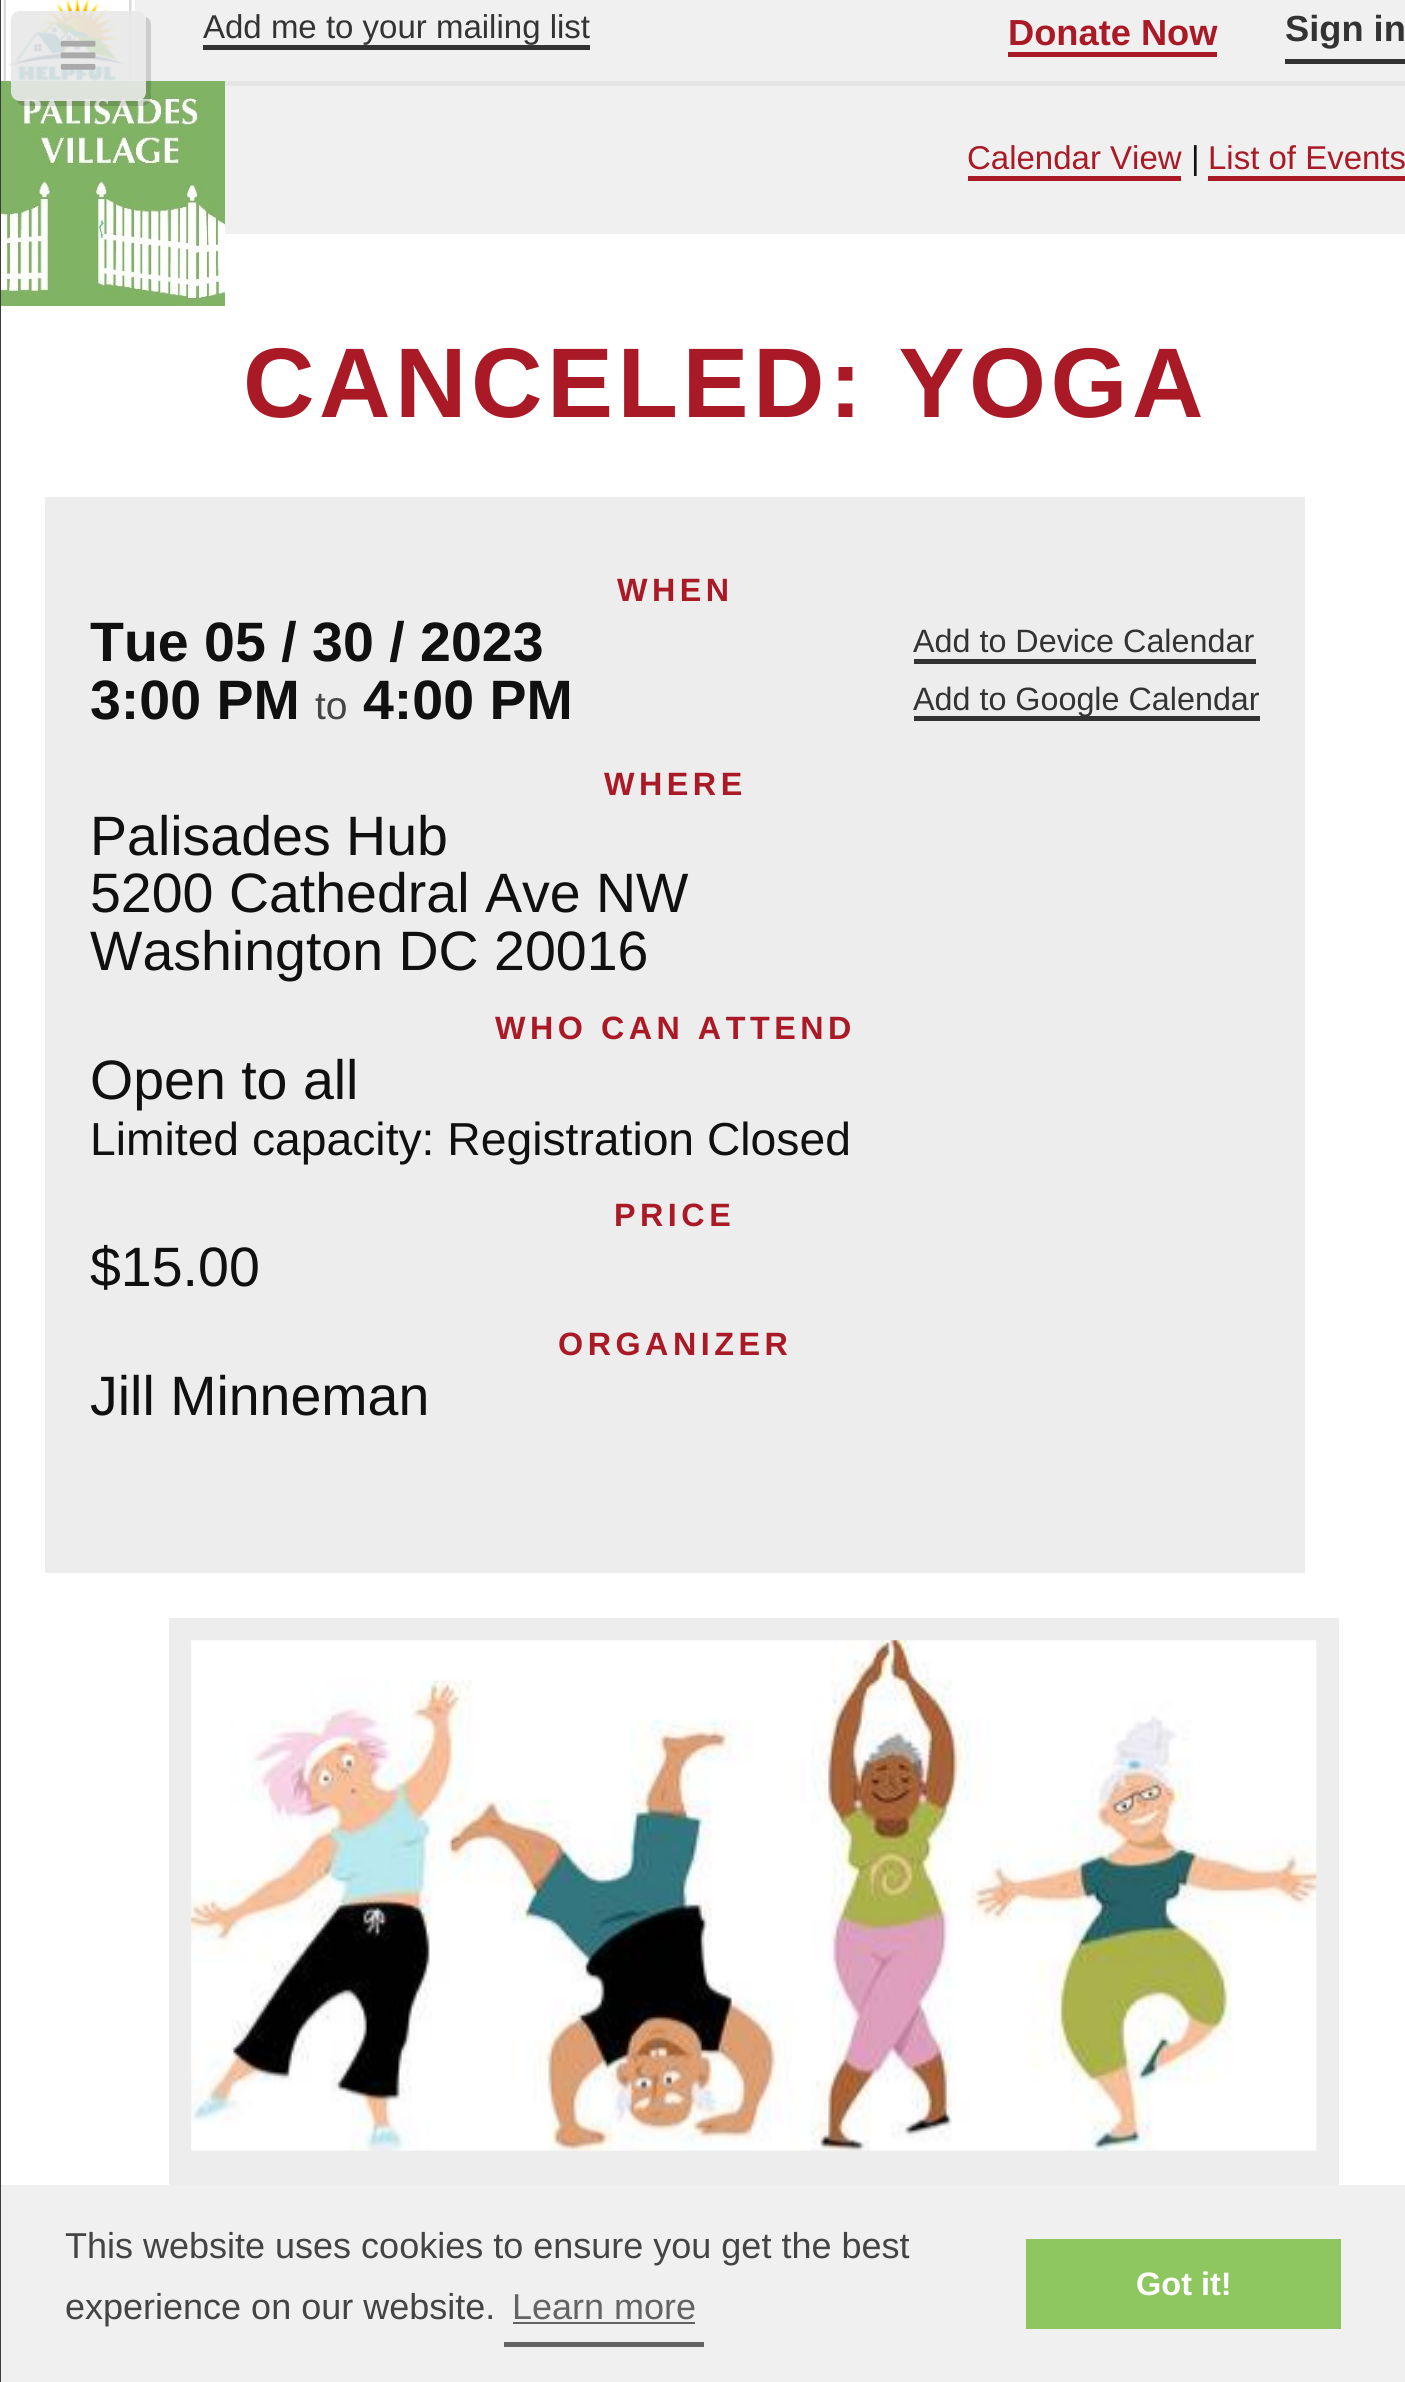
import math
import cairo

surface = cairo.ImageSurface(cairo.FORMAT_RGB24, 1405, 2382)
cr = cairo.Context(surface)
options = cairo.FontOptions()
options.set_hint_metrics(cairo.HINT_METRICS_OFF)
options.set_hint_style(cairo.HINT_STYLE_NONE)
cr.set_font_options(options)
cr.set_miter_limit(4)


def rgb(code):
    cr.set_source_rgb(*(v / 255 for v in bytes.fromhex(code[-6:])))


def tracked(x, y, s, letter, word):
    cr.move_to(x, y)
    for ch in s:
        cr.show_text(ch)
        cr.rel_move_to(letter + word * (ch == ' '), 0)


def rrect(x, y, w, h, r):
    cr.new_sub_path()
    for i, (u, v) in enumerate([(x + w - r, y + h - r), (x + r, y + h - r), (x + r, y + r), (x + w - r, y + r)]):
        cr.arc(u, v, r, i * math.pi / 2, (i + 1) * math.pi / 2)
    cr.close_path()


def image(path, x, y, w, h):
    cr.save()
    cr.set_source_surface(cairo.ImageSurface.create_from_png(path), x, y)
    cr.rectangle(x, y, w, h)
    cr.fill()
    cr.restore()


rgb("#f0f0f0")
cr.paint()
rgb("#3c3c3c")
cr.rectangle(0, 0, 1, 2382)
cr.fill()
image("img/2.png", 1, 0, 134, 81)
rgb("#ffffff")
cr.rectangle(1, 234, 1404, 1951)
cr.fill()
image("img/3.png", 1, 81, 224, 225)
cr.set_source_rgba(0, 0, 0, 0.15)
cr.new_path()
cr.move_to(17, 101)
cr.curve_to(18, 104, 21, 106, 25, 106)
cr.line_to(142, 106)
cr.curve_to(147, 106, 151, 102, 151, 97)
cr.line_to(151, 25)
cr.curve_to(151, 21, 149, 18, 146, 17)
cr.line_to(146, 20)
cr.line_to(146, 92)
cr.curve_to(146, 97, 142, 101, 137, 101)
cr.line_to(20, 101)
cr.close_path()
cr.fill()
cr.set_source_rgba(0.91, 0.91, 0.91, 0.9)
rrect(11, 11, 135, 90, 9)
cr.fill()
image("img/1.png", 60, 40, 36, 30)
for x, y, w, h, color in [
    (203, 45, 387, 5, "#333333"),
    (1008, 52, 209, 5, "#aa1a26"),
    (1285, 59, 120, 5, "#333333"),
    (225, 81, 1180, 5, "#e5e5e5"),
    (968, 176, 213, 5, "#aa1a26"),
    (1208, 176, 197, 5, "#aa1a26"),
    (45, 497, 1260, 1076, "#ededed"),
    (914, 659, 342, 5, "#333333"),
    (914, 716, 346, 5, "#333333"),
    (169, 1618, 1170, 567, "#ededed"),
]:
    rgb(color)
    cr.rectangle(x, y, w, h)
    cr.fill()
image("img/4.png", 191, 1640, 1126, 511)
for x, y, w, h, color in [
    (504, 2342, 200, 5, "#636363"),
    (513, 2322, 182, 2, "#636363"),
    (1026, 2239, 315, 90, "#8ec760"),
]:
    rgb(color)
    cr.rectangle(x, y, w, h)
    cr.fill()
cr.select_font_face("Liberation Sans")
cr.set_font_size(33)
rgb("#333333")
cr.move_to(203, 38)
cr.show_text("Add me to your mailing list")
cr.select_font_face("Liberation Sans", cairo.FONT_SLANT_NORMAL, cairo.FONT_WEIGHT_BOLD)
cr.set_font_size(36.25)
rgb("#aa1a26")
cr.move_to(1008, 45)
cr.show_text("Donate Now")
rgb("#333333")
cr.move_to(1285, 41)
cr.show_text("Sign in")
cr.select_font_face("Liberation Sans")
cr.set_font_size(33)
rgb("#aa1a26")
cr.move_to(967, 169)
cr.show_text("Calendar View")
rgb("#101010")
cr.move_to(1191, 169)
cr.show_text("|")
rgb("#aa1a26")
cr.move_to(1208, 169)
cr.show_text("List of Events")
cr.select_font_face("Liberation Sans", cairo.FONT_SLANT_NORMAL, cairo.FONT_WEIGHT_BOLD)
cr.set_font_size(99)
tracked(243, 417, "CANCELED: YOGA", 4.5, 0)
cr.set_font_size(32.3)
tracked(617, 601, "WHEN", 4.5, 0)
cr.set_font_size(55.5)
rgb("#101010")
cr.move_to(90, 661)
cr.show_text("Tue 05 / 30 / 2023")
cr.move_to(90, 719)
cr.show_text("3:00 PM")
cr.select_font_face("Liberation Sans")
cr.set_font_size(39)
rgb("#444444")
cr.move_to(315, 719)
cr.show_text("to")
cr.select_font_face("Liberation Sans", cairo.FONT_SLANT_NORMAL, cairo.FONT_WEIGHT_BOLD)
cr.set_font_size(55.5)
rgb("#101010")
cr.move_to(363, 719)
cr.show_text("4:00 PM")
cr.select_font_face("Liberation Sans")
cr.set_font_size(32.3)
rgb("#333333")
cr.move_to(913, 652)
cr.show_text("Add to Device Calendar")
cr.move_to(913, 710)
cr.show_text("Add to Google Calendar")
cr.select_font_face("Liberation Sans", cairo.FONT_SLANT_NORMAL, cairo.FONT_WEIGHT_BOLD)
rgb("#aa1a26")
tracked(604, 795, "WHERE", 4.5, 0)
cr.select_font_face("Liberation Sans")
cr.set_font_size(55.5)
rgb("#101010")
for x, y, s in [
    (90, 855, "Palisades Hub"),
    (90, 912, "5200 Cathedral Ave NW"),
    (90, 970, "Washington DC 20016"),
]:
    cr.move_to(x, y)
    cr.show_text(s)
cr.select_font_face("Liberation Sans", cairo.FONT_SLANT_NORMAL, cairo.FONT_WEIGHT_BOLD)
cr.set_font_size(32.3)
rgb("#aa1a26")
tracked(495, 1039, "WHO CAN ATTEND", 4.5, 0)
cr.select_font_face("Liberation Sans")
cr.set_font_size(55.5)
rgb("#101010")
cr.move_to(90, 1099)
cr.show_text("Open to all")
cr.set_font_size(46.25)
cr.move_to(90, 1155)
cr.show_text("Limited capacity: Registration Closed")
cr.select_font_face("Liberation Sans", cairo.FONT_SLANT_NORMAL, cairo.FONT_WEIGHT_BOLD)
cr.set_font_size(32.3)
rgb("#aa1a26")
tracked(614, 1226, "PRICE", 4.5, 0)
cr.select_font_face("Liberation Sans")
cr.set_font_size(55.5)
rgb("#101010")
cr.move_to(90, 1286)
cr.show_text("$15.00")
cr.select_font_face("Liberation Sans", cairo.FONT_SLANT_NORMAL, cairo.FONT_WEIGHT_BOLD)
cr.set_font_size(32.3)
rgb("#aa1a26")
tracked(558, 1355, "ORGANIZER", 4.5, 0)
cr.select_font_face("Liberation Sans")
cr.set_font_size(55.5)
rgb("#101010")
cr.move_to(90, 1415)
cr.show_text("Jill Minneman")
cr.set_font_size(36)
rgb("#444444")
cr.move_to(65, 2258)
cr.show_text("This website uses cookies to ensure you get the best")
cr.move_to(65, 2319)
cr.show_text("experience on our website.")
rgb("#636363")
cr.move_to(512, 2319)
cr.show_text("Learn more")
cr.select_font_face("Liberation Sans", cairo.FONT_SLANT_NORMAL, cairo.FONT_WEIGHT_BOLD)
cr.set_font_size(32.5)
rgb("#ffffff")
cr.move_to(1136, 2295)
cr.show_text("Got it!")
surface.write_to_png("page.png")
